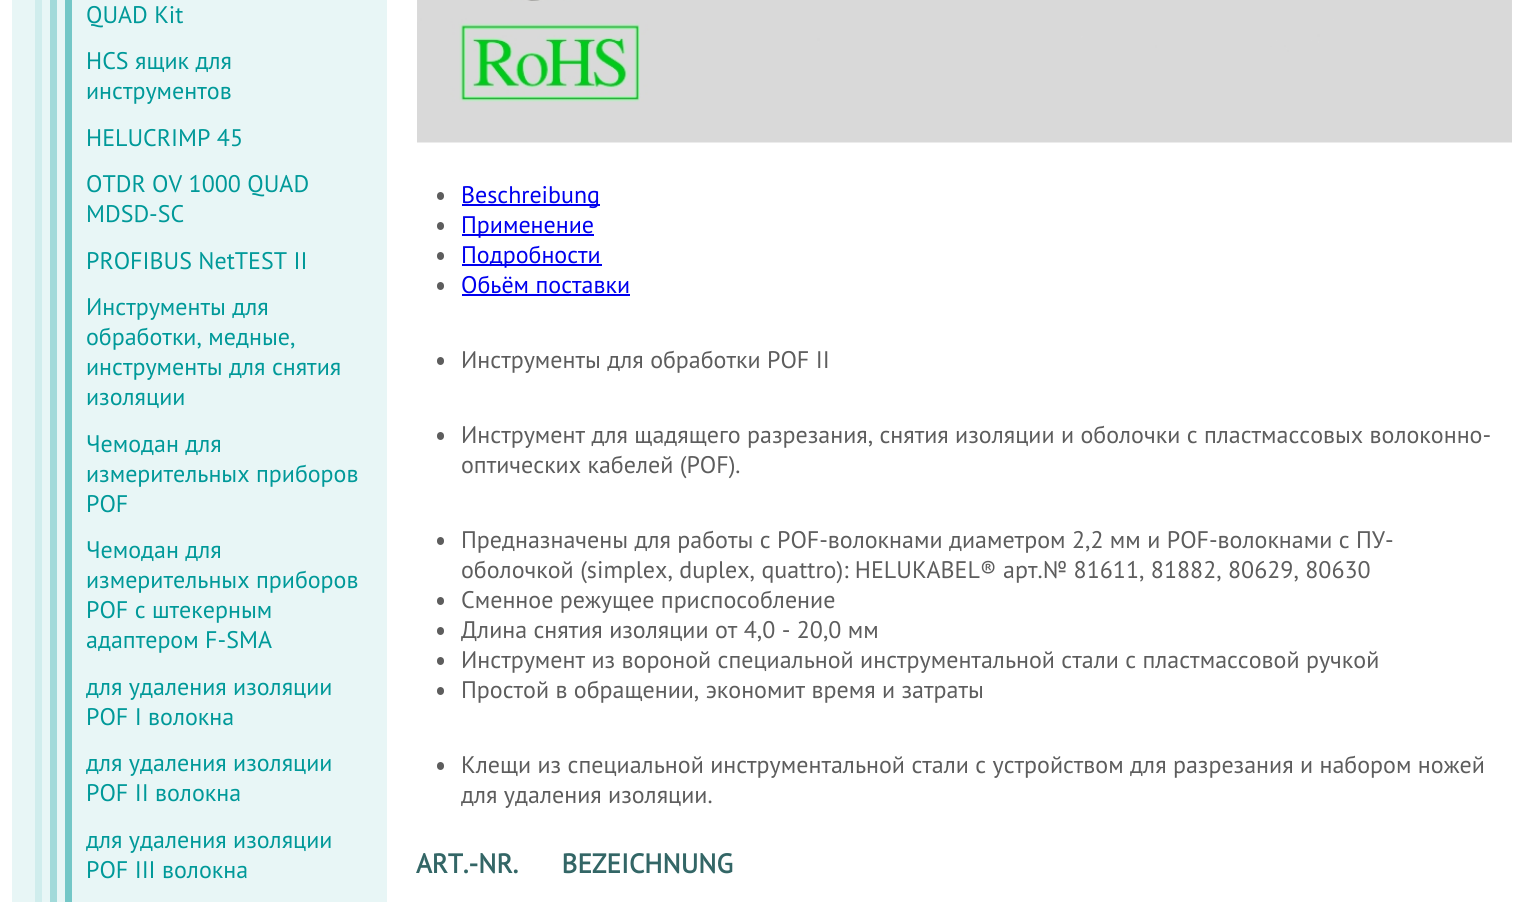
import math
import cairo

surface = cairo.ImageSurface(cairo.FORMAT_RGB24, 1522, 902)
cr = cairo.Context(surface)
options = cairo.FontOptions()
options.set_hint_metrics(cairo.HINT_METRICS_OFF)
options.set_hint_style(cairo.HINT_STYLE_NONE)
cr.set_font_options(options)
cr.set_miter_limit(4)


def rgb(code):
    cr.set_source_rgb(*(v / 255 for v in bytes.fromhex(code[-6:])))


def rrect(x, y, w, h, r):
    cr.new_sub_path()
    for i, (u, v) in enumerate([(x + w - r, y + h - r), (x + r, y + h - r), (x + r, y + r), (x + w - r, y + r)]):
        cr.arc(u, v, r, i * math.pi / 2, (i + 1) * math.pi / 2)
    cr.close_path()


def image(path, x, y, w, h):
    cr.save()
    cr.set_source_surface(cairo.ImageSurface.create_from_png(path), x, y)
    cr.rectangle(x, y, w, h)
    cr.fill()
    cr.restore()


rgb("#ffffff")
cr.paint()
for x, y, w, h, color in [
    (12, 0, 375, 902, "#e8f6f6"),
    (35, 0, 7, 902, "#d0eded"),
    (50, 0, 7, 902, "#a2dada"),
    (65, 0, 7, 902, "#74c7c7"),
]:
    rgb(color)
    cr.rectangle(x, y, w, h)
    cr.fill()
image("img/1.png", 417, 0, 1095, 143)
rgb("#5d5d5d")
rrect(437, 192, 7, 8, 3.5)
cr.fill()
rgb("#0000ee")
cr.rectangle(462, 204, 138, 2)
cr.fill()
rgb("#5d5d5d")
rrect(437, 222, 7, 8, 3.5)
cr.fill()
rgb("#0000ee")
cr.rectangle(462, 234, 132, 2)
cr.fill()
rgb("#5d5d5d")
rrect(437, 252, 7, 8, 3.5)
cr.fill()
rgb("#0000ee")
cr.rectangle(462, 264, 140, 2)
cr.fill()
rgb("#5d5d5d")
rrect(437, 282, 7, 8, 3.5)
cr.fill()
rgb("#0000ee")
cr.rectangle(462, 294, 168, 2)
cr.fill()
rgb("#5d5d5d")
rrect(437, 357, 7, 8, 3.5)
cr.fill()
rrect(437, 432, 7, 8, 3.5)
cr.fill()
rrect(437, 537, 7, 8, 3.5)
cr.fill()
rrect(437, 597, 7, 8, 3.5)
cr.fill()
rrect(437, 627, 7, 8, 3.5)
cr.fill()
rrect(437, 657, 7, 8, 3.5)
cr.fill()
rrect(437, 687, 7, 8, 3.5)
cr.fill()
rrect(437, 762, 7, 8, 3.5)
cr.fill()
cr.select_font_face("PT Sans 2")
cr.set_font_size(24)
rgb("#009999")
for x, y, s in [
    (86, 23, "QUAD Kit"),
    (86, 69, "HCS ящик для"),
    (86, 99, "инструментов"),
    (86, 146, "HELUCRIMP 45"),
    (86, 192, "OTDR OV 1000 QUAD"),
    (86, 222, "MDSD-SC"),
    (86, 269, "PROFIBUS NetTEST II"),
    (86, 315, "Инструменты для"),
    (86, 345, "обработки, медные,"),
    (86, 375, "инструменты для снятия"),
    (86, 405, "изоляции"),
    (86, 452, "Чемодан для"),
    (86, 482, "измерительных приборов"),
    (86, 512, "POF"),
    (86, 558, "Чемодан для"),
    (86, 588, "измерительных приборов"),
    (86, 618, "POF c штекерным"),
    (86, 648, "адаптером F-SMA"),
    (86, 695, "для удаления изоляции"),
    (86, 725, "POF I волокна"),
    (86, 771, "для удаления изоляции"),
    (86, 801, "POF II волокна"),
    (86, 848, "для удаления изоляции"),
    (86, 878, "POF III волокна"),
]:
    cr.move_to(x, y)
    cr.show_text(s)
cr.select_font_face("PT Sans")
rgb("#0000ee")
for x, y, s in [
    (461, 203, "Beschreibung"),
    (461, 233, "Применение"),
    (461, 263, "Подробности"),
    (461, 293, "Обьём поставки"),
]:
    cr.move_to(x, y)
    cr.show_text(s)
rgb("#5d5d5d")
for x, y, s in [
    (461, 368, "Инструменты для обработки POF II"),
    (461, 443, "Инструмент для щадящего разрезания, снятия изоляции и оболочки с пластмассовых волоконно-"),
    (461, 473, "оптических кабелей (POF)."),
    (461, 548, "Предназначены для работы с POF-волокнами диаметром 2,2 мм и POF-волокнами с ПУ-"),
    (461, 578, "оболочкой (simplex, duplex, quattro): HELUKABEL® арт.№ 81611, 81882, 80629, 80630"),
    (461, 608, "Сменное режущее приспособление"),
    (461, 638, "Длина снятия изоляции от 4,0 - 20,0 мм"),
    (461, 668, "Инструмент из вороной специальной инструментальной стали с пластмассовой ручкой"),
    (461, 698, "Простой в обращении, экономит время и затраты"),
    (461, 773, "Клещи из специальной инструментальной стали с устройством для разрезания и набором ножей"),
    (461, 803, "для удаления изоляции."),
]:
    cr.move_to(x, y)
    cr.show_text(s)
cr.select_font_face("PT Sans", cairo.FONT_SLANT_NORMAL, cairo.FONT_WEIGHT_BOLD)
cr.set_font_size(27)
rgb("#336666")
cr.move_to(416, 873)
cr.show_text("ART.-NR.      BEZEICHNUNG")
surface.write_to_png("page.png")
